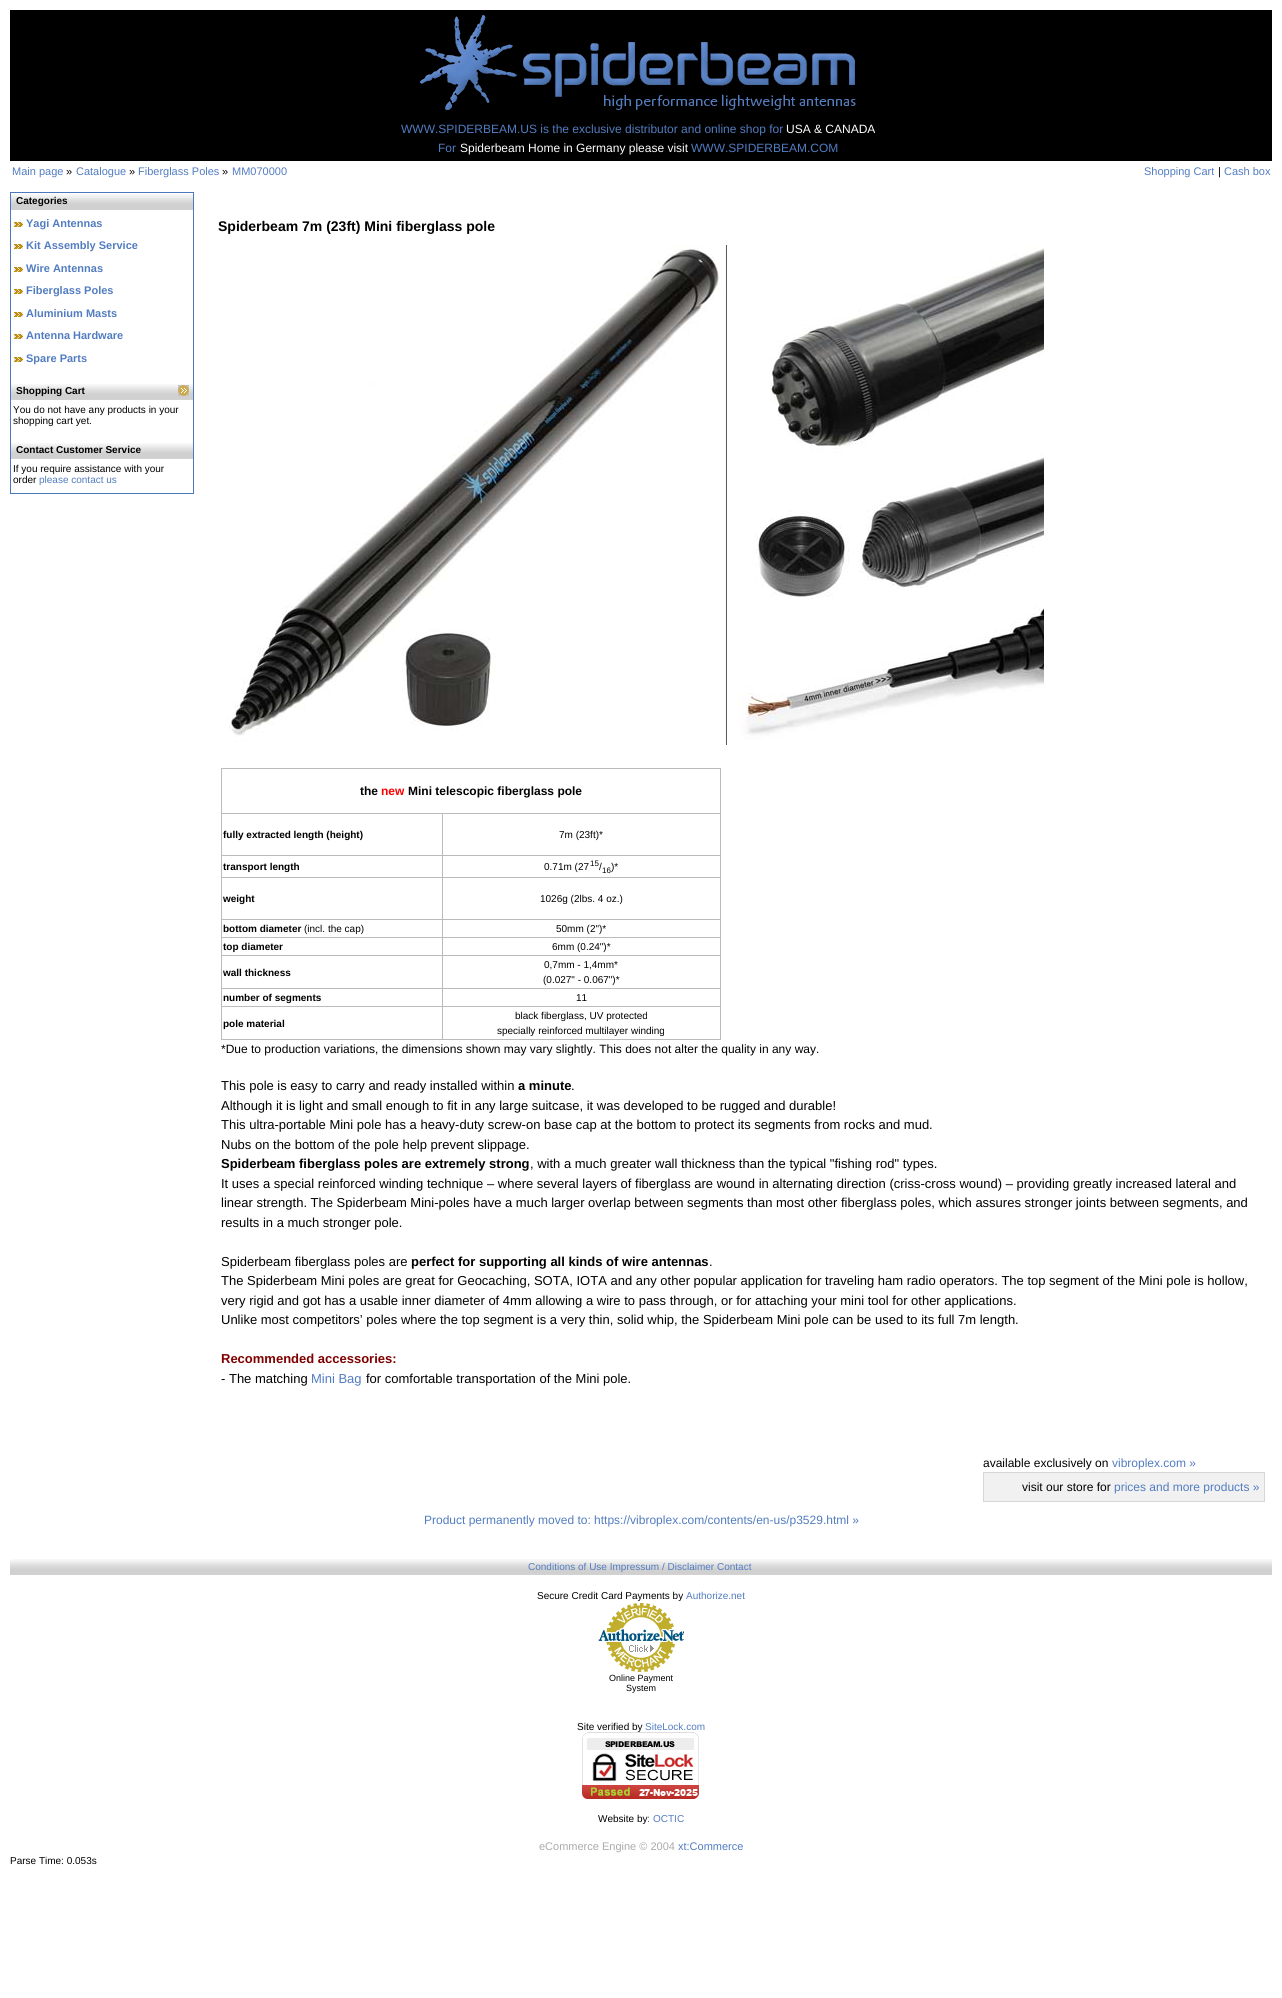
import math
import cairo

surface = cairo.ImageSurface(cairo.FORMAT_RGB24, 1282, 1998)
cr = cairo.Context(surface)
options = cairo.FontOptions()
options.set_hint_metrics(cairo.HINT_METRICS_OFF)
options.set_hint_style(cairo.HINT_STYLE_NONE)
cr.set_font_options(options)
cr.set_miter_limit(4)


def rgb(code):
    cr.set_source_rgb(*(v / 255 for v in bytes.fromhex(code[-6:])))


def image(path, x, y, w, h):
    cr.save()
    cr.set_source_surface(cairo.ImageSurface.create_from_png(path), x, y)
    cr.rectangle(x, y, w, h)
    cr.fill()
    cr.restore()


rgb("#ffffff")
cr.paint()
rgb("#000000")
cr.rectangle(10, 10, 1262, 151)
cr.fill()
image("img/1.png", 420, 15, 436, 95)
cr.rectangle(10.5, 192.5, 183, 301)
rgb("#4e78bc")
cr.set_line_width(1)
cr.stroke()
image("img/2.png", 11, 194, 182, 16)
image("img/3.png", 14, 222, 9, 5)
image("img/3.png", 14, 244, 9, 5)
image("img/3.png", 14, 267, 9, 5)
image("img/3.png", 14, 289, 9, 5)
image("img/3.png", 14, 312, 9, 5)
image("img/3.png", 14, 334, 9, 5)
image("img/3.png", 14, 357, 9, 5)
image("img/2.png", 11, 384, 182, 16)
image("img/4.png", 178, 385, 11, 11)
image("img/2.png", 11, 443, 182, 16)
image("img/5.png", 227, 245, 817, 500)
for x, y, w, h, color in [
    (221, 768, 500, 1, "#bbbbbb"),
    (720, 768, 1, 272, "#bbbbbb"),
    (221, 1039, 500, 1, "#bbbbbb"),
    (221, 768, 1, 272, "#bbbbbb"),
    (442, 813, 279, 1, "#bbbbbb"),
    (442, 855, 279, 1, "#bbbbbb"),
    (442, 877, 279, 1, "#bbbbbb"),
    (442, 919, 279, 1, "#bbbbbb"),
    (442, 937, 279, 1, "#bbbbbb"),
    (442, 955, 279, 1, "#bbbbbb"),
    (442, 988, 279, 1, "#bbbbbb"),
    (442, 1006, 279, 1, "#bbbbbb"),
    (442, 1006, 1, 34, "#bbbbbb"),
    (221, 1006, 222, 1, "#bbbbbb"),
    (442, 988, 1, 19, "#bbbbbb"),
    (221, 988, 222, 1, "#bbbbbb"),
    (442, 955, 1, 34, "#bbbbbb"),
    (221, 955, 222, 1, "#bbbbbb"),
    (442, 937, 1, 19, "#bbbbbb"),
    (221, 937, 222, 1, "#bbbbbb"),
    (442, 919, 1, 19, "#bbbbbb"),
    (221, 919, 222, 1, "#bbbbbb"),
    (442, 877, 1, 43, "#bbbbbb"),
    (221, 877, 222, 1, "#bbbbbb"),
    (442, 855, 1, 23, "#bbbbbb"),
    (221, 855, 222, 1, "#bbbbbb"),
    (442, 813, 1, 43, "#bbbbbb"),
    (221, 813, 222, 1, "#bbbbbb"),
]:
    rgb(color)
    cr.rectangle(x, y, w, h)
    cr.fill()
rgb("#f1f1f1")
cr.rectangle(983.5, 1472.5, 281, 29)
cr.fill_preserve()
rgb("#d6d6d6")
cr.stroke()
image("img/6.png", 10, 1559, 1262, 16)
image("img/7.png", 598, 1603, 86, 69)
cr.select_font_face("Liberation Sans")
cr.set_font_size(12)
rgb("#527cc0")
cr.move_to(401, 133)
cr.show_text("WWW.SPIDERBEAM.US is the exclusive distributor and online shop for")
rgb("#ffffff")
cr.move_to(786, 133)
cr.show_text("USA & CANADA")
rgb("#527cc0")
cr.move_to(438, 152)
cr.show_text("For")
rgb("#ffffff")
cr.move_to(460, 152)
cr.show_text("Spiderbeam Home in Germany please visit")
rgb("#527cc0")
cr.move_to(691, 152)
cr.show_text("WWW.SPIDERBEAM.COM")
cr.set_font_size(11)
cr.move_to(12, 175)
cr.show_text("Main page")
rgb("#000000")
cr.move_to(66, 175)
cr.show_text("»")
rgb("#527cc0")
cr.move_to(76, 175)
cr.show_text("Catalogue")
rgb("#000000")
cr.move_to(129, 175)
cr.show_text("»")
rgb("#527cc0")
cr.move_to(138, 175)
cr.show_text("Fiberglass Poles")
rgb("#000000")
cr.move_to(222, 175)
cr.show_text("»")
rgb("#527cc0")
cr.move_to(232, 175)
cr.show_text("MM070000")
cr.move_to(1144, 175)
cr.show_text("Shopping Cart")
rgb("#000000")
cr.move_to(1218, 175)
cr.show_text("|")
rgb("#527cc0")
cr.move_to(1224, 175)
cr.show_text("Cash box")
cr.select_font_face("Liberation Sans", cairo.FONT_SLANT_NORMAL, cairo.FONT_WEIGHT_BOLD)
cr.set_font_size(10)
rgb("#000000")
cr.move_to(16, 204)
cr.show_text("Categories")
cr.set_font_size(11)
rgb("#527cc0")
for x, y, s in [
    (26, 227, "Yagi Antennas"),
    (26, 249, "Kit Assembly Service"),
    (26, 272, "Wire Antennas"),
    (26, 294, "Fiberglass Poles"),
    (26, 317, "Aluminium Masts"),
    (26, 339, "Antenna Hardware"),
    (26, 362, "Spare Parts"),
]:
    cr.move_to(x, y)
    cr.show_text(s)
cr.set_font_size(10)
rgb("#000000")
cr.move_to(16, 394)
cr.show_text("Shopping Cart")
cr.select_font_face("Liberation Sans")
cr.move_to(13, 413)
cr.show_text("You do not have any products in your")
cr.move_to(13, 424)
cr.show_text("shopping cart yet.")
cr.select_font_face("Liberation Sans", cairo.FONT_SLANT_NORMAL, cairo.FONT_WEIGHT_BOLD)
cr.move_to(16, 453)
cr.show_text("Contact Customer Service")
cr.select_font_face("Liberation Sans")
cr.move_to(13, 472)
cr.show_text("If you require assistance with your")
cr.move_to(13, 483)
cr.show_text("order")
rgb("#527cc0")
cr.move_to(39, 483)
cr.show_text("please contact us")
cr.select_font_face("Liberation Sans", cairo.FONT_SLANT_NORMAL, cairo.FONT_WEIGHT_BOLD)
cr.set_font_size(14)
rgb("#000000")
cr.move_to(218, 231)
cr.show_text("Spiderbeam 7m (23ft) Mini fiberglass pole")
cr.set_font_size(12)
cr.move_to(360, 795)
cr.show_text("the")
rgb("#ff0000")
cr.move_to(381, 795)
cr.show_text("new")
rgb("#000000")
cr.move_to(408, 795)
cr.show_text("Mini telescopic fiberglass pole")
cr.set_font_size(10)
cr.move_to(223, 838)
cr.show_text("fully extracted length (height)")
cr.select_font_face("Liberation Sans")
cr.move_to(559, 838)
cr.show_text("7m (23ft)*")
cr.select_font_face("Liberation Sans", cairo.FONT_SLANT_NORMAL, cairo.FONT_WEIGHT_BOLD)
cr.move_to(223, 870)
cr.show_text("transport length")
cr.select_font_face("Liberation Sans")
cr.move_to(544, 870)
cr.show_text("0.71m (27")
cr.set_font_size(8)
cr.move_to(590, 866)
cr.show_text("15")
cr.set_font_size(10)
cr.move_to(599, 870)
cr.show_text("/")
cr.set_font_size(8)
cr.move_to(602, 873)
cr.show_text("16")
cr.set_font_size(10)
cr.move_to(611, 870)
cr.show_text(")*")
cr.select_font_face("Liberation Sans", cairo.FONT_SLANT_NORMAL, cairo.FONT_WEIGHT_BOLD)
cr.move_to(223, 902)
cr.show_text("weight")
cr.select_font_face("Liberation Sans")
cr.move_to(540, 902)
cr.show_text("1026g (2lbs. 4 oz.)")
cr.select_font_face("Liberation Sans", cairo.FONT_SLANT_NORMAL, cairo.FONT_WEIGHT_BOLD)
cr.move_to(223, 932)
cr.show_text("bottom diameter")
cr.select_font_face("Liberation Sans")
cr.move_to(304, 932)
cr.show_text("(incl. the cap)")
cr.move_to(556, 932)
cr.show_text("50mm (2\")*")
cr.select_font_face("Liberation Sans", cairo.FONT_SLANT_NORMAL, cairo.FONT_WEIGHT_BOLD)
cr.move_to(223, 950)
cr.show_text("top diameter")
cr.select_font_face("Liberation Sans")
cr.move_to(552, 950)
cr.show_text("6mm (0.24\")*")
cr.select_font_face("Liberation Sans", cairo.FONT_SLANT_NORMAL, cairo.FONT_WEIGHT_BOLD)
cr.move_to(223, 976)
cr.show_text("wall thickness")
cr.select_font_face("Liberation Sans")
cr.move_to(544, 968)
cr.show_text("0,7mm - 1,4mm*")
cr.move_to(543, 983)
cr.show_text("(0.027\" - 0.067\")*")
cr.select_font_face("Liberation Sans", cairo.FONT_SLANT_NORMAL, cairo.FONT_WEIGHT_BOLD)
cr.move_to(223, 1001)
cr.show_text("number of segments")
cr.select_font_face("Liberation Sans")
cr.move_to(576, 1001)
cr.show_text("11")
cr.select_font_face("Liberation Sans", cairo.FONT_SLANT_NORMAL, cairo.FONT_WEIGHT_BOLD)
cr.move_to(223, 1027)
cr.show_text("pole material")
cr.select_font_face("Liberation Sans")
cr.move_to(515, 1019)
cr.show_text("black fiberglass, UV protected")
cr.move_to(497, 1034)
cr.show_text("specially reinforced multilayer winding")
cr.set_font_size(12)
cr.move_to(221, 1053)
cr.show_text("*Due to production variations, the dimensions shown may vary slightly. This does not alter the quality in any way.")
cr.set_font_size(13)
cr.move_to(221, 1090)
cr.show_text("This pole is easy to carry and ready installed within")
cr.select_font_face("Liberation Sans", cairo.FONT_SLANT_NORMAL, cairo.FONT_WEIGHT_BOLD)
cr.move_to(518, 1090)
cr.show_text("a minute")
cr.select_font_face("Liberation Sans")
for x, y, s in [
    (571, 1090, "."),
    (221, 1110, "Although it is light and small enough to fit in any large suitcase, it was developed to be rugged and durable!"),
    (221, 1129, "This ultra-portable Mini pole has a heavy-duty screw-on base cap at the bottom to protect its segments from rocks and mud."),
    (221, 1149, "Nubs on the bottom of the pole help prevent slippage."),
]:
    cr.move_to(x, y)
    cr.show_text(s)
cr.select_font_face("Liberation Sans", cairo.FONT_SLANT_NORMAL, cairo.FONT_WEIGHT_BOLD)
cr.move_to(221, 1168)
cr.show_text("Spiderbeam fiberglass poles are extremely strong")
cr.select_font_face("Liberation Sans")
for x, y, s in [
    (530, 1168, ", with a much greater wall thickness than the typical \"fishing rod\" types."),
    (221, 1188, "It uses a special reinforced winding technique – where several layers of fiberglass are wound in alternating direction (criss-cross wound) – providing greatly increased lateral and"),
    (221, 1207, "linear strength. The Spiderbeam Mini-poles have a much larger overlap between segments than most other fiberglass poles, which assures stronger joints between segments, and"),
    (221, 1227, "results in a much stronger pole."),
    (221, 1266, "Spiderbeam fiberglass poles are"),
]:
    cr.move_to(x, y)
    cr.show_text(s)
cr.select_font_face("Liberation Sans", cairo.FONT_SLANT_NORMAL, cairo.FONT_WEIGHT_BOLD)
cr.move_to(411, 1266)
cr.show_text("perfect for supporting all kinds of wire antennas")
cr.select_font_face("Liberation Sans")
for x, y, s in [
    (709, 1266, "."),
    (221, 1285, "The Spiderbeam Mini poles are great for Geocaching, SOTA, IOTA and any other popular application for traveling ham radio operators. The top segment of the Mini pole is hollow,"),
    (221, 1305, "very rigid and got has a usable inner diameter of 4mm allowing a wire to pass through, or for attaching your mini tool for other applications."),
    (221, 1324, "Unlike most competitors’ poles where the top segment is a very thin, solid whip, the Spiderbeam Mini pole can be used to its full 7m length."),
]:
    cr.move_to(x, y)
    cr.show_text(s)
cr.select_font_face("Liberation Sans", cairo.FONT_SLANT_NORMAL, cairo.FONT_WEIGHT_BOLD)
rgb("#800000")
cr.move_to(221, 1363)
cr.show_text("Recommended accessories:")
cr.select_font_face("Liberation Sans")
rgb("#000000")
cr.move_to(221, 1383)
cr.show_text("- The matching")
rgb("#527cc0")
cr.move_to(311, 1383)
cr.show_text("Mini Bag")
rgb("#000000")
cr.move_to(366, 1383)
cr.show_text("for comfortable transportation of the Mini pole.")
cr.set_font_size(12)
cr.move_to(983, 1467)
cr.show_text("available exclusively on")
rgb("#527cc0")
cr.move_to(1112, 1467)
cr.show_text("vibroplex.com »")
rgb("#000000")
cr.move_to(1022, 1491)
cr.show_text("visit our store for")
rgb("#527cc0")
cr.move_to(1114, 1491)
cr.show_text("prices and more products »")
cr.move_to(424, 1524)
cr.show_text("Product permanently moved to: https://vibroplex.com/contents/en-us/p3529.html »")
cr.set_font_size(10)
cr.move_to(528, 1570)
cr.show_text("Conditions of Use Impressum / Disclaimer Contact")
rgb("#000000")
cr.move_to(537, 1599)
cr.show_text("Secure Credit Card Payments by")
rgb("#527cc0")
cr.move_to(686, 1599)
cr.show_text("Authorize.net")
cr.set_font_size(9)
rgb("#000000")
cr.move_to(609, 1681)
cr.show_text("Online Payment")
cr.move_to(626, 1691)
cr.show_text("System")
cr.set_font_size(10)
cr.move_to(577, 1730)
cr.show_text("Site verified by")
rgb("#527cc0")
cr.move_to(645, 1730)
cr.show_text("SiteLock.com")
image("img/8.png", 582, 1732, 117, 67)
rgb("#000000")
cr.move_to(598, 1822)
cr.show_text("Website by:")
rgb("#527cc0")
cr.move_to(653, 1822)
cr.show_text("OCTIC")
cr.set_font_size(11)
rgb("#aaaaaa")
cr.move_to(539, 1850)
cr.show_text("eCommerce Engine © 2004")
rgb("#527cc0")
cr.move_to(678, 1850)
cr.show_text("xt:Commerce")
cr.set_font_size(10)
rgb("#000000")
cr.move_to(10, 1864)
cr.show_text("Parse Time: 0.053s")
surface.write_to_png("page.png")
